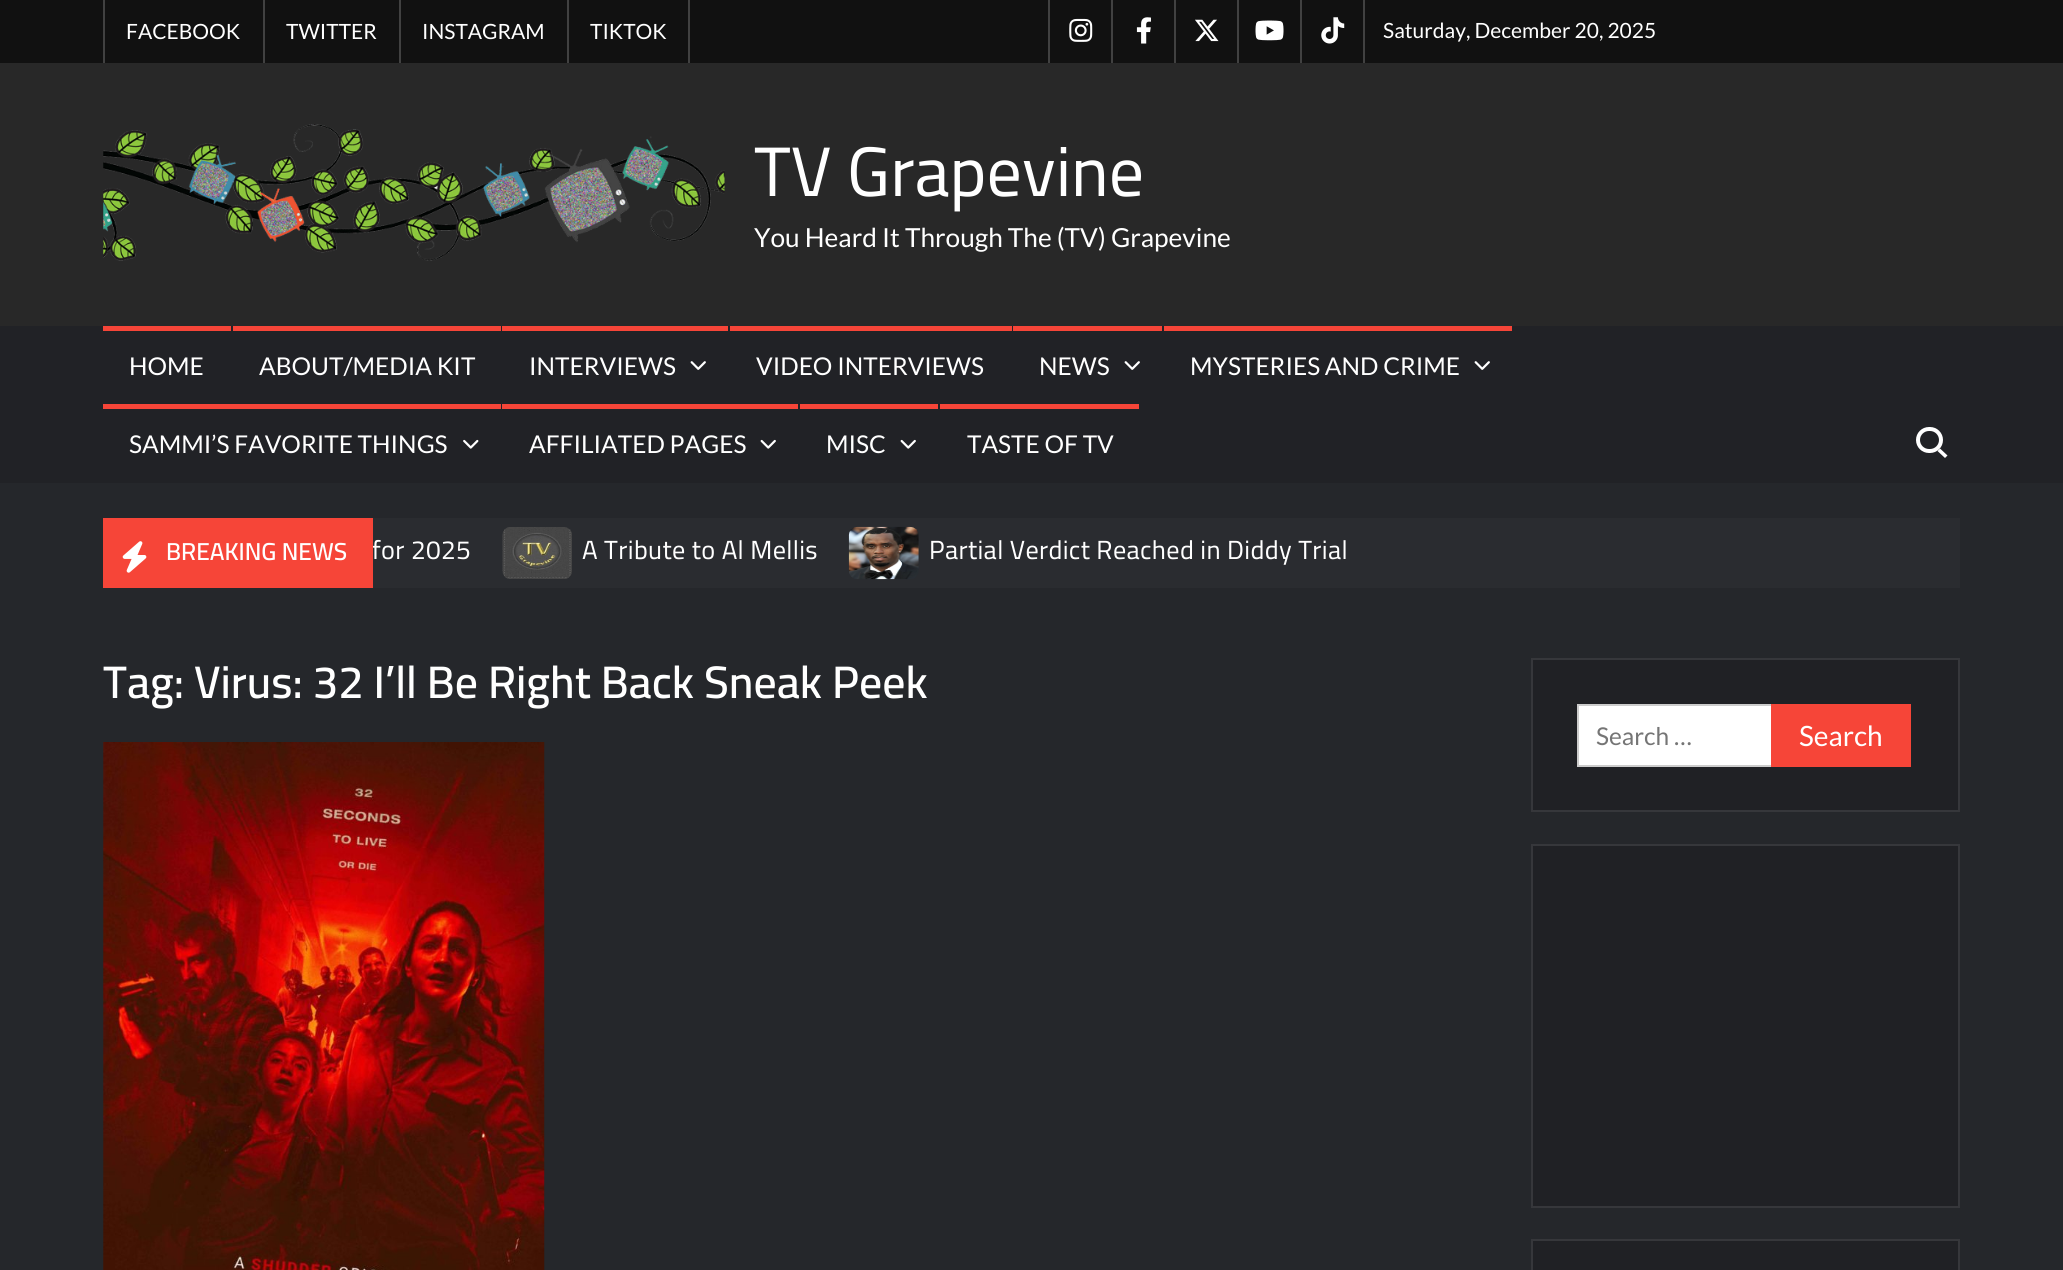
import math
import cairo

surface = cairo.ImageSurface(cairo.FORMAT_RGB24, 2063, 1270)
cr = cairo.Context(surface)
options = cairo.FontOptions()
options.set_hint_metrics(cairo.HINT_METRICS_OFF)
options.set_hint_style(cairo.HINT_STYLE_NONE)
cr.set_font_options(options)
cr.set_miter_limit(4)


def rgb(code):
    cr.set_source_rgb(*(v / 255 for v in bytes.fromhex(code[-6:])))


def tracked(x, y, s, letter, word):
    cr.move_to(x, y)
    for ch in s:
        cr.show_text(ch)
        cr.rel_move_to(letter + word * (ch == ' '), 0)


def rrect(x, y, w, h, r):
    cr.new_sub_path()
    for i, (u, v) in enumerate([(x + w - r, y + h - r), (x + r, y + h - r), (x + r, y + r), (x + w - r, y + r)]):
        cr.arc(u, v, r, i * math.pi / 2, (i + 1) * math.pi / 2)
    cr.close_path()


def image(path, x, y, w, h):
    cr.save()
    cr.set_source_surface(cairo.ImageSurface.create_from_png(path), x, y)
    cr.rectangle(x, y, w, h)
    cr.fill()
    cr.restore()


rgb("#25272b")
cr.paint()
for x, y, w, h, color in [
    (0, 0, 2063, 63, "#111111"),
    (103, 0, 2, 63, "#414141"),
    (263, 0, 2, 63, "#414141"),
    (399, 0, 2, 63, "#414141"),
    (688, 0, 2, 63, "#414141"),
    (567, 0, 2, 63, "#414141"),
    (1111, 0, 2, 63, "#414141"),
    (1048, 0, 2, 63, "#414141"),
]:
    rgb(color)
    cr.rectangle(x, y, w, h)
    cr.fill()
image("img/1.png", 1069, 18, 24, 24)
cr.rectangle(1174, 0, 2, 63)
cr.fill()
image("img/2.png", 1136, 17, 15, 27)
cr.rectangle(1237, 0, 2, 63)
cr.fill()
image("img/3.png", 1195, 19, 24, 23)
cr.rectangle(1300, 0, 2, 63)
cr.fill()
image("img/4.png", 1255, 20, 29, 21)
cr.rectangle(1363, 0, 2, 63)
cr.fill()
image("img/5.png", 1321, 17, 24, 27)
rgb("#282828")
cr.rectangle(0, 63, 2063, 263)
cr.fill()
image("img/6.png", 103, 124, 622, 137)
for x, y, w, h, color in [
    (0, 326, 2063, 157, "#212226"),
    (103, 326, 128, 5, "#f64538"),
    (233, 326, 268, 5, "#f64538"),
    (502, 326, 226, 5, "#f64538"),
]:
    rgb(color)
    cr.rectangle(x, y, w, h)
    cr.fill()
image("img/7.png", 690, 361, 16, 9)
cr.rectangle(730, 326, 282, 5)
cr.fill()
cr.rectangle(1013, 326, 149, 5)
cr.fill()
image("img/7.png", 1124, 361, 16, 9)
cr.rectangle(1164, 326, 348, 5)
cr.fill()
image("img/7.png", 1474, 361, 16, 9)
cr.rectangle(103, 404, 398, 5)
cr.fill()
image("img/8.png", 463, 439, 16, 10)
cr.rectangle(502, 404, 296, 5)
cr.fill()
image("img/9.png", 760, 439, 16, 10)
cr.rectangle(800, 404, 138, 5)
cr.fill()
image("img/9.png", 900, 439, 16, 10)
cr.rectangle(940, 404, 199, 5)
cr.fill()
rrect(1918, 429, 23, 22, 11)
rgb("#ffffff")
cr.set_line_width(4)
cr.stroke()
cr.new_path()
cr.move_to(1940, 448.5)
cr.line_to(1947.5, 455.5)
cr.line_to(1945, 458)
cr.line_to(1937.5, 451)
cr.close_path()
cr.fill()
rgb("#2a2c30")
cr.rectangle(373, 518, 1587, 70)
cr.fill()
image("img/11.png", 502, 527, 70, 52)
image("img/12.png", 848, 526, 71, 54)
image("img/13.png", 103, 742, 442, 528)
rgb("#202125")
cr.rectangle(1532, 659, 427, 152)
cr.fill_preserve()
rgb("#36373b")
cr.set_line_width(2)
cr.stroke()
rgb("#ffffff")
cr.rectangle(1578, 705, 194, 61)
cr.fill_preserve()
rgb("#cccccc")
cr.stroke()
rgb("#f64538")
cr.rectangle(1771, 704, 140, 63)
cr.fill()
rgb("#202125")
cr.rectangle(1532, 845, 427, 362)
cr.fill_preserve()
rgb("#36373b")
cr.stroke()
rgb("#202125")
cr.rectangle(1532, 1240, 427, 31)
cr.fill_preserve()
rgb("#36373b")
cr.stroke()
cr.select_font_face("Lato")
cr.set_font_size(21)
rgb("#ffffff")
for x, y, s in [
    (126, 39, "FACEBOOK"),
    (286, 39, "TWITTER"),
    (422, 39, "INSTAGRAM"),
    (590, 39, "TIKTOK"),
    (1383, 38, "Saturday, December 20, 2025"),
]:
    cr.move_to(x, y)
    cr.show_text(s)
cr.select_font_face("Cairo")
cr.set_font_size(70)
cr.move_to(754, 196)
cr.show_text("TV Grapevine")
cr.select_font_face("Lato")
cr.set_font_size(26.25)
cr.move_to(754, 247)
cr.show_text("You Heard It Through The (TV) Grapevine")
cr.set_font_size(24.5)
for x, y, s in [
    (129, 375, "HOME"),
    (259, 375, "ABOUT/MEDIA KIT"),
    (529, 375, "INTERVIEWS"),
    (756, 375, "VIDEO INTERVIEWS"),
    (1039, 375, "NEWS"),
    (1190, 375, "MYSTERIES AND CRIME"),
    (129, 453, "SAMMI’S FAVORITE THINGS"),
    (529, 453, "AFFILIATED PAGES"),
    (826, 453, "MISC"),
    (967, 453, "TASTE OF TV"),
]:
    cr.move_to(x, y)
    cr.show_text(s)
cr.select_font_face("Cairo")
cr.set_font_size(26.25)
tracked(372, 559, "for 2025", 0.35, 0)
rgb("#f64538")
cr.rectangle(103, 518, 270, 70)
cr.fill()
cr.select_font_face("Cairo SemiBold")
cr.set_font_size(24.5)
rgb("#ffffff")
cr.move_to(166, 560)
cr.show_text("BREAKING NEWS")
image("img/10.png", 122, 541, 25, 32)
cr.select_font_face("Cairo")
cr.set_font_size(26.25)
tracked(582, 559, "A Tribute to Al Mellis", 0.35, 0)
tracked(929, 559, "Partial Verdict Reached in Diddy Trial", 0.35, 0)
cr.select_font_face("Cairo SemiBold")
cr.set_font_size(45.5)
cr.move_to(103, 698)
cr.show_text("Tag: Virus: 32 I’ll Be Right Back Sneak Peek")
cr.select_font_face("Lato")
cr.set_font_size(24.5)
rgb("#757575")
cr.move_to(1596, 745)
cr.show_text("Search …")
cr.set_font_size(28)
rgb("#ffffff")
cr.move_to(1799, 746)
cr.show_text("Search")
surface.write_to_png("page.png")
